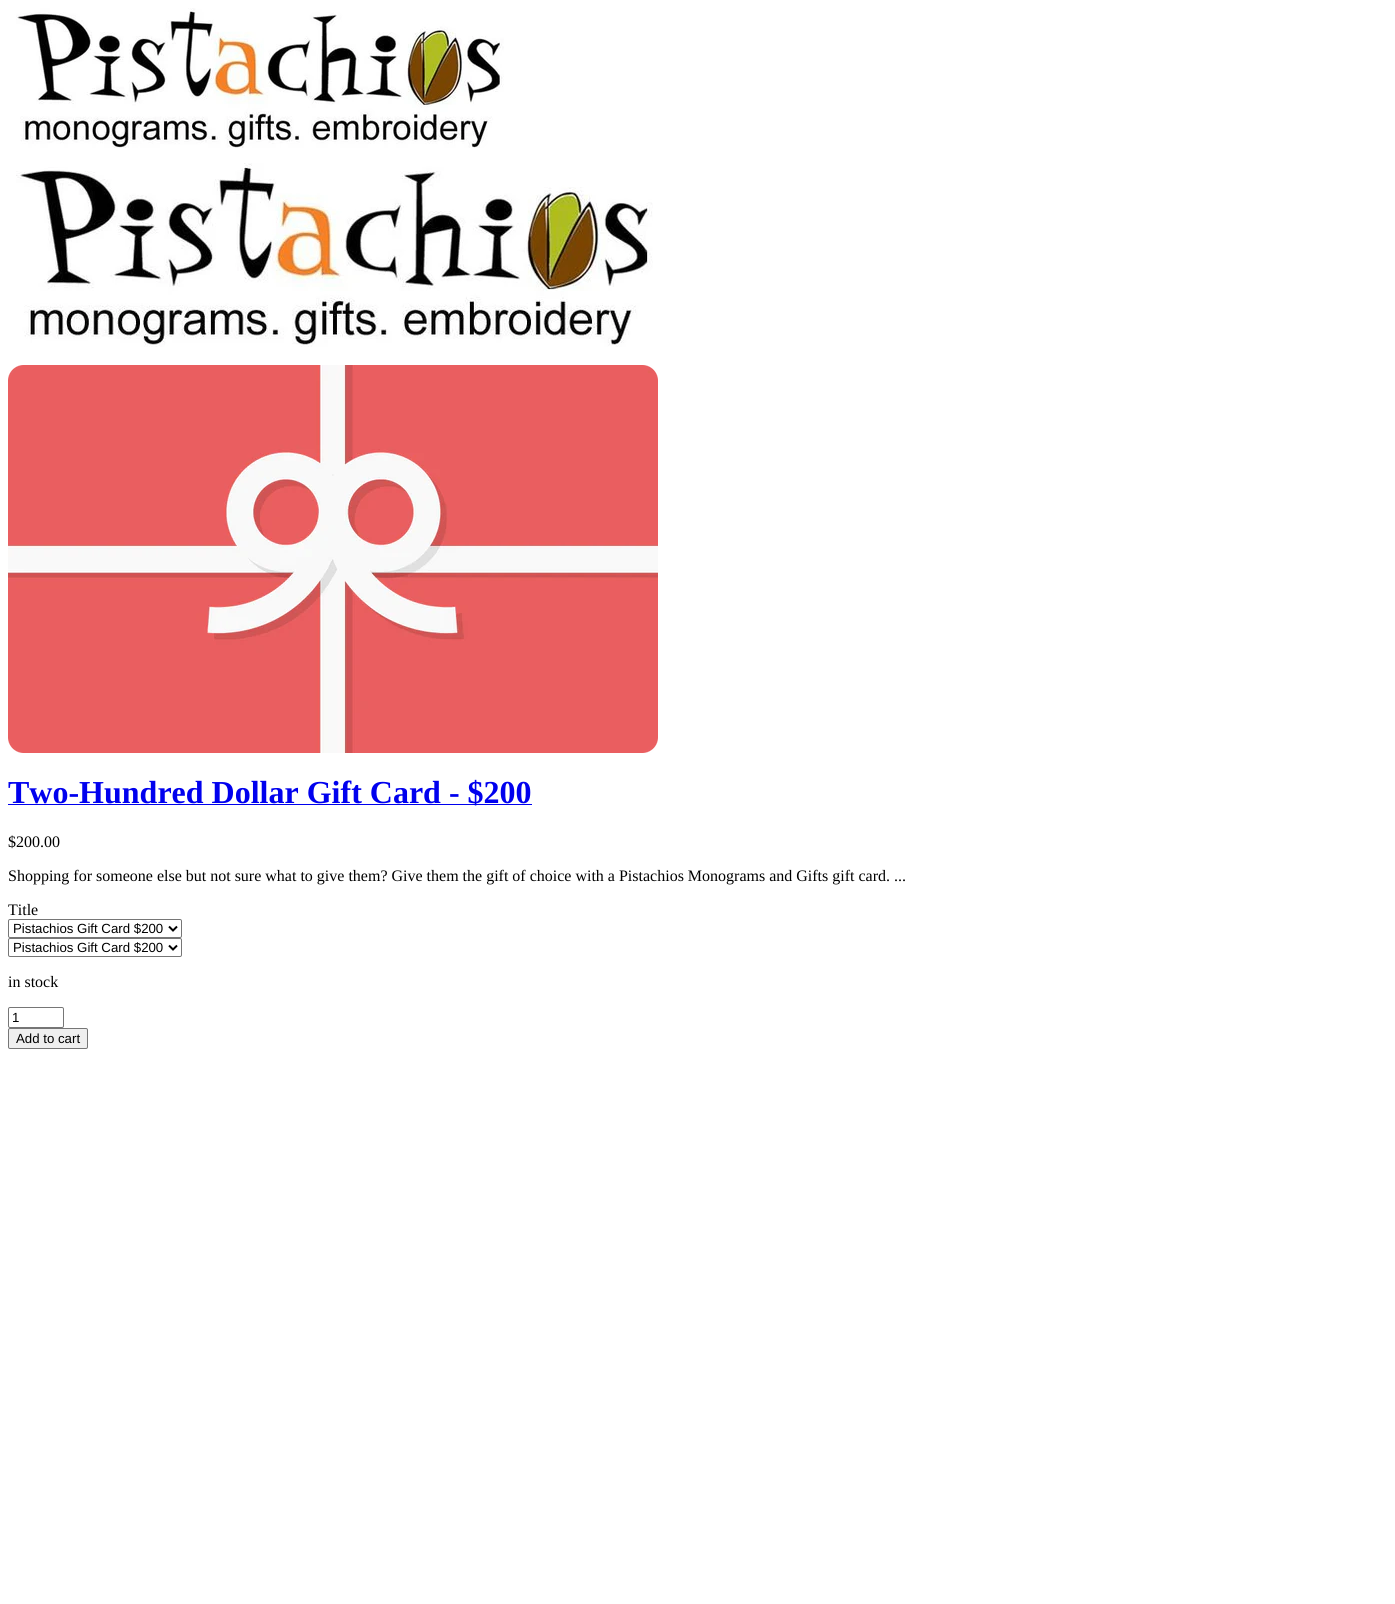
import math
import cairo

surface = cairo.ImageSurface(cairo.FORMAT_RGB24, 1395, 1604)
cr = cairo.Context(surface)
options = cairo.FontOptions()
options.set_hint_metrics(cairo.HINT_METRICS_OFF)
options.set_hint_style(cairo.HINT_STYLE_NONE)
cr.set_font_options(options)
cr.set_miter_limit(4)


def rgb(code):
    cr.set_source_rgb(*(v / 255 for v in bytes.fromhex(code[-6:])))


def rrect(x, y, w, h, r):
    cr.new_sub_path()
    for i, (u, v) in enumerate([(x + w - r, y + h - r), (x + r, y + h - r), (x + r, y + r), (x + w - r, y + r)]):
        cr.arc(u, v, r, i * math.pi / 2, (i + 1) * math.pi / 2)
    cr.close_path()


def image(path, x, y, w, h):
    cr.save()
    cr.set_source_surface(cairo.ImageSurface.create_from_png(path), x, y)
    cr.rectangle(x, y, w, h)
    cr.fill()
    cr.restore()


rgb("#ffffff")
cr.paint()
image("img/1.png", 16, 8, 488, 140)
image("img/2.png", 16, 163, 637, 184)
image("img/3.png", 8, 365, 650, 388)
rgb("#0000ee")
cr.rectangle(8, 804, 524, 1)
cr.fill()
rrect(8.5, 919.5, 173, 18, 1.5)
rgb("#767676")
cr.set_line_width(1)
cr.stroke()
cr.new_path()
cr.move_to(169, 926.5)
cr.line_to(173, 930.5)
cr.line_to(177, 926.5)
rgb("#000000")
cr.set_line_width(2)
cr.stroke()
rrect(8.5, 938.5, 173, 18, 1.5)
rgb("#767676")
cr.set_line_width(1)
cr.stroke()
cr.new_path()
cr.move_to(169, 945.5)
cr.line_to(173, 949.5)
cr.line_to(177, 945.5)
rgb("#000000")
cr.set_line_width(2)
cr.stroke()
rrect(8.5, 1007.5, 55, 20, 1.5)
rgb("#767676")
cr.set_line_width(1)
cr.stroke()
rgb("#efefef")
rrect(8.5, 1028.5, 79, 20, 1.5)
cr.fill_preserve()
rgb("#767676")
cr.stroke()
cr.select_font_face("Liberation Serif", cairo.FONT_SLANT_NORMAL, cairo.FONT_WEIGHT_BOLD)
cr.set_font_size(32)
rgb("#0000ee")
cr.move_to(8, 803)
cr.show_text("Two-Hundred Dollar Gift Card - $200")
cr.select_font_face("Liberation Serif")
cr.set_font_size(16)
rgb("#000000")
for x, y, s in [
    (8, 847, "$200.00"),
    (8, 881, "Shopping for someone else but not sure what to give them? Give them the gift of choice with a Pistachios Monograms and Gifts gift card. ..."),
    (8, 915, "Title"),
]:
    cr.move_to(x, y)
    cr.show_text(s)
cr.select_font_face("Liberation Sans")
cr.set_font_size(13.25)
cr.move_to(13, 933)
cr.show_text("Pistachios Gift Card $200")
cr.move_to(13, 952)
cr.show_text("Pistachios Gift Card $200")
cr.select_font_face("Liberation Serif")
cr.set_font_size(16)
cr.move_to(8, 987)
cr.show_text("in stock")
cr.select_font_face("Liberation Sans")
cr.set_font_size(13.25)
cr.move_to(12, 1022)
cr.show_text("1")
cr.move_to(16, 1043)
cr.show_text("Add to cart")
surface.write_to_png("page.png")
